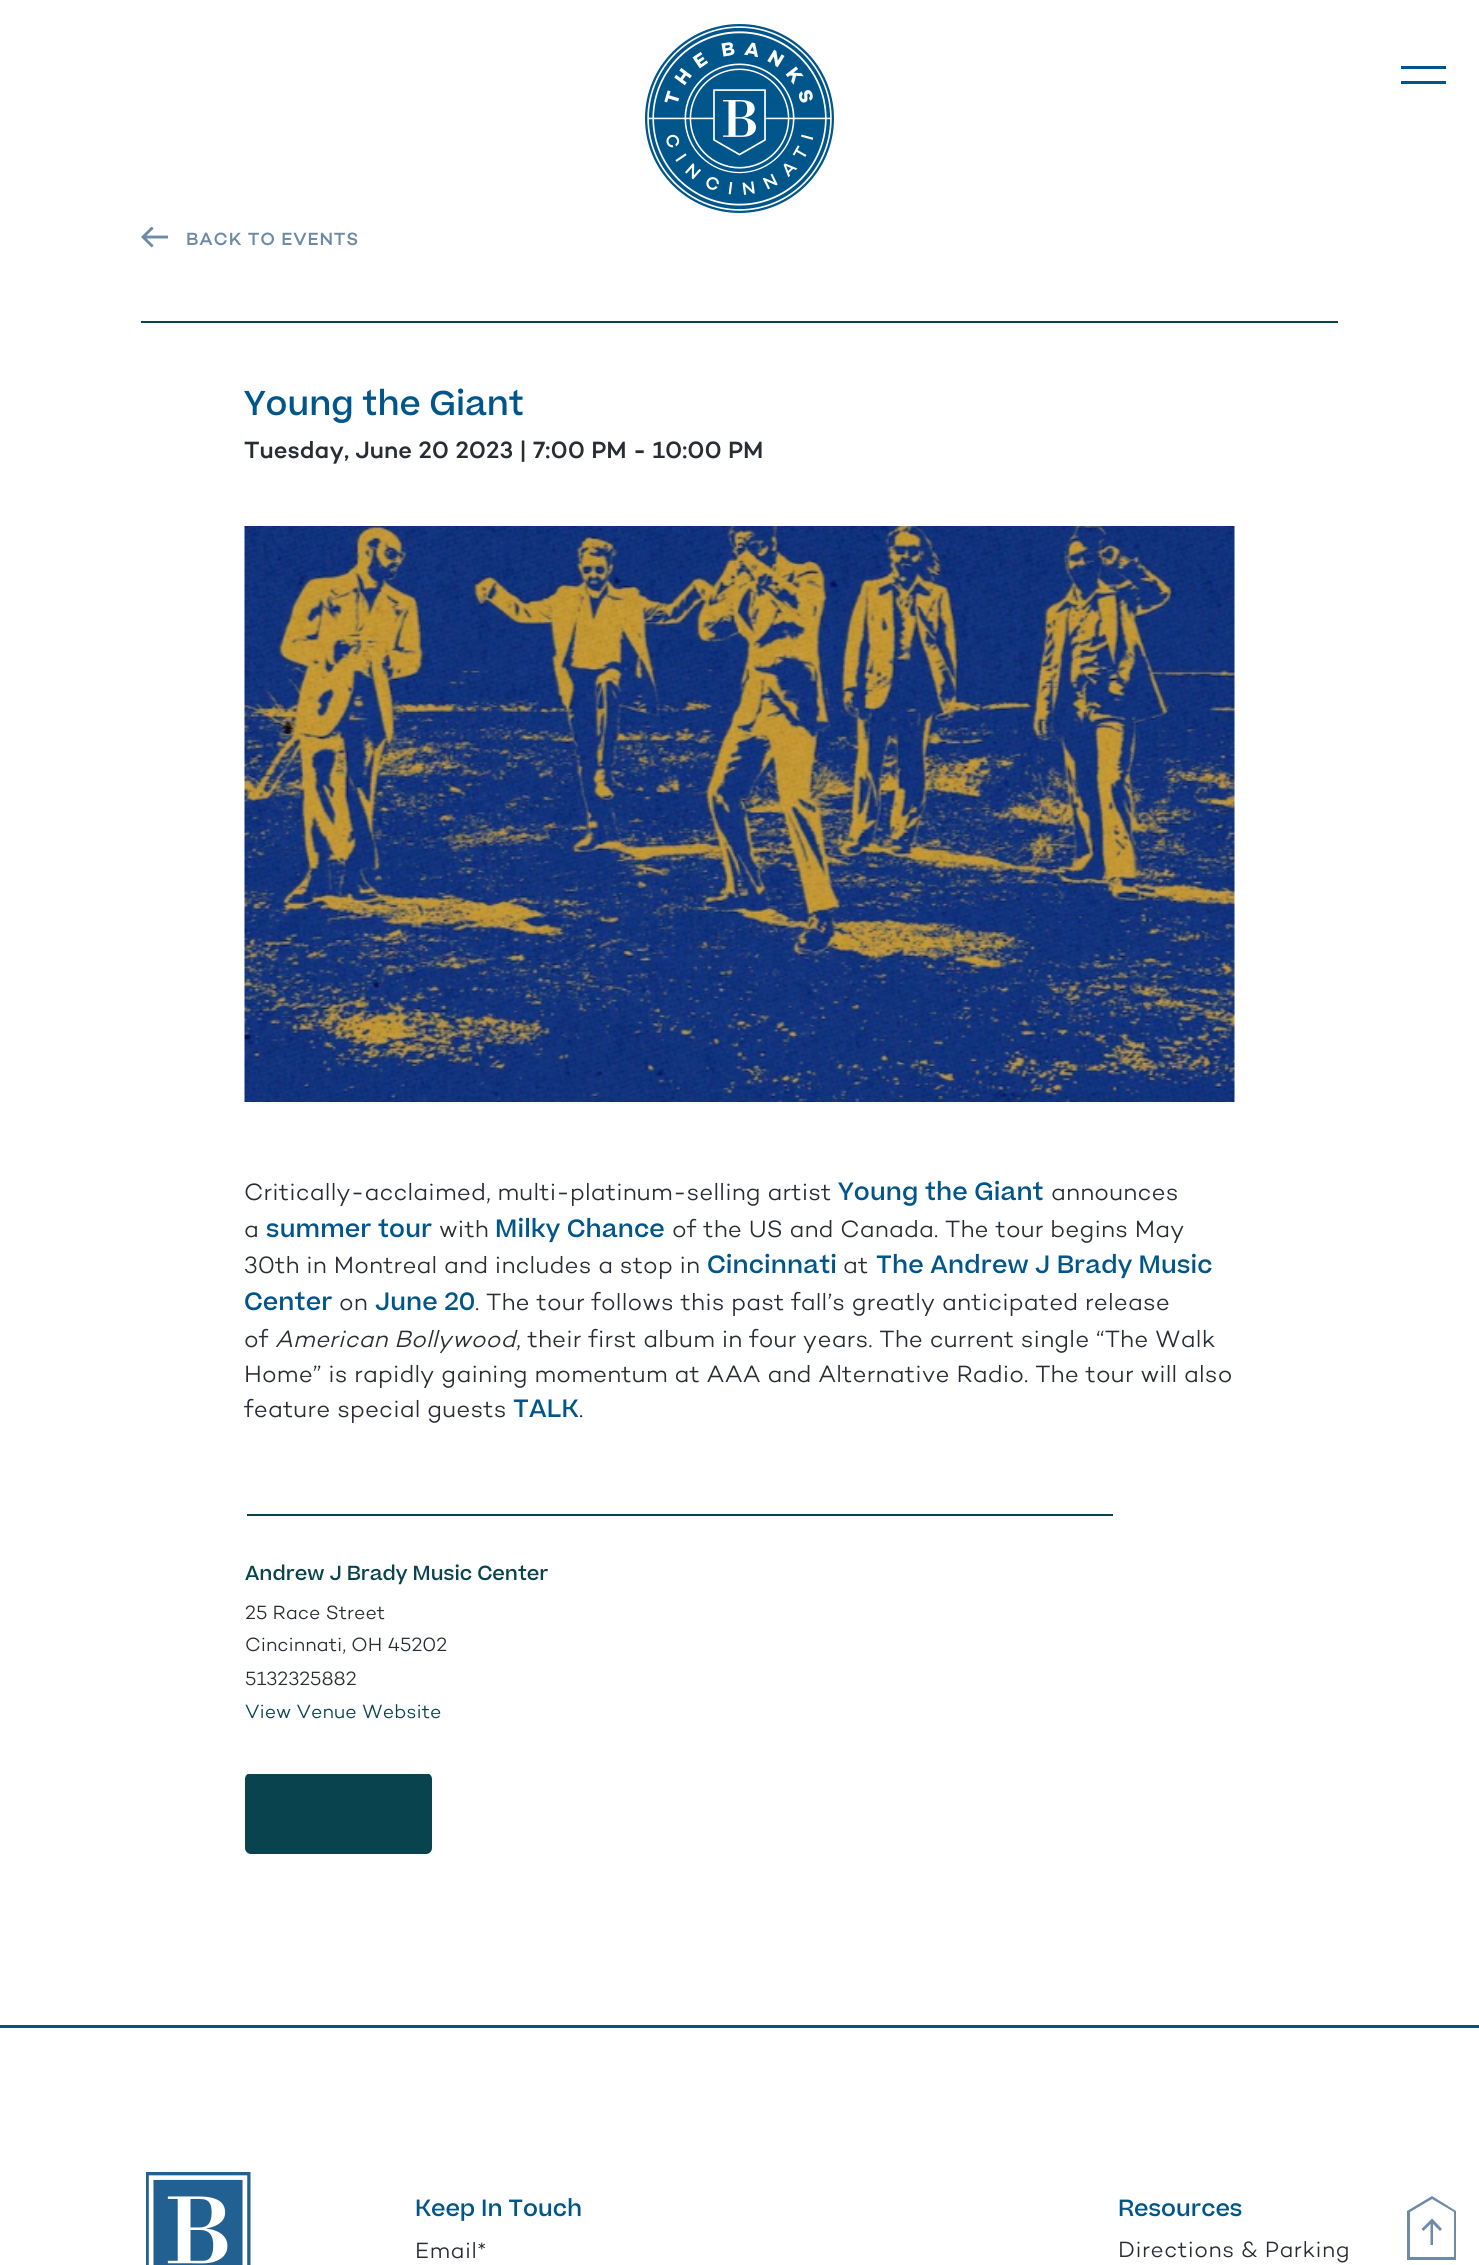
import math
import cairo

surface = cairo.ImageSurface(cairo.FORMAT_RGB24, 1479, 2265)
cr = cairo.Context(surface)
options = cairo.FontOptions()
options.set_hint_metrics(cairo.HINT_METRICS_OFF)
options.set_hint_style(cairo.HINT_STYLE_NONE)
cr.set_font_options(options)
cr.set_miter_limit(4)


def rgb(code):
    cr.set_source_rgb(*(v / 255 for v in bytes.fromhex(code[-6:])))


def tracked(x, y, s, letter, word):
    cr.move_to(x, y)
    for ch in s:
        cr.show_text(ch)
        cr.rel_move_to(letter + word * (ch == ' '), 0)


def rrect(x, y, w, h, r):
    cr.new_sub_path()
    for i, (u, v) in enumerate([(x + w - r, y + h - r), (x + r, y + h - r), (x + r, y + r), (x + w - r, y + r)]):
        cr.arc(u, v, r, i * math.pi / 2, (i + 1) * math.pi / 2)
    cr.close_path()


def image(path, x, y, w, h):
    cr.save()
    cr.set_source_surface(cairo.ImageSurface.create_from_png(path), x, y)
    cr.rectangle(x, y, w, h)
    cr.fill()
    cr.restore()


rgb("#ffffff")
cr.paint()
image("img/1.png", 645, 24, 189, 189)
rgb("#00558b")
cr.new_path()
cr.move_to(1401, 66)
cr.line_to(1446, 66)
cr.line_to(1446, 69)
cr.line_to(1401, 69)
cr.close_path()
cr.move_to(1401, 81)
cr.line_to(1446, 81)
cr.line_to(1446, 84)
cr.line_to(1401, 84)
cr.close_path()
cr.fill()
image("img/2.png", 141, 227, 27, 21)
rgb("#09434d")
cr.rectangle(141, 321, 1197, 2)
cr.fill()
image("img/3.png", 244, 526, 991, 576)
cr.rectangle(245, 1514, 870, 2)
cr.fill()
rgb("#ffffff")
cr.rectangle(1113, 1514, 2, 2)
cr.fill()
rgb("#09434d")
rrect(245, 1773, 187, 81, 6)
cr.fill()
for x, y, w, h, color in [
    (245, 1773, 185, 1, "#ffffff"),
    (245, 1514, 2, 2, "#ffffff"),
    (0, 2025, 1479, 3, "#00558b"),
]:
    rgb(color)
    cr.rectangle(x, y, w, h)
    cr.fill()
image("img/4.png", 146, 2172, 105, 93)
rgb("#6d8ba6")
cr.new_path()
cr.move_to(1432, 2199)
cr.line_to(1410, 2212)
cr.line_to(1410, 2257)
cr.line_to(1454, 2257)
cr.line_to(1454, 2212)
cr.close_path()
cr.move_to(1432, 2196)
cr.line_to(1456, 2211)
cr.line_to(1456, 2260)
cr.line_to(1407, 2260)
cr.line_to(1407, 2211)
cr.close_path()
cr.fill()
cr.new_path()
cr.move_to(1432, 2218.5)
cr.line_to(1421.5, 2229)
cr.line_to(1423.5, 2231)
cr.line_to(1430.5, 2224)
cr.line_to(1430.5, 2245)
cr.line_to(1433, 2245)
cr.line_to(1433, 2224)
cr.line_to(1440, 2231)
cr.line_to(1442, 2229)
cr.line_to(1433, 2219.5)
cr.close_path()
cr.fill()
cr.select_font_face("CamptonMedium")
cr.set_font_size(18)
tracked(186, 245, "BACK TO EVENTS", 0.75, 0)
cr.select_font_face("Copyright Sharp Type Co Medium")
cr.set_font_size(33)
rgb("#00558b")
cr.move_to(244, 415)
cr.show_text("Young the Giant")
cr.select_font_face("CamptonMedium")
cr.set_font_size(24)
rgb("#282d33")
cr.move_to(244, 458)
cr.show_text("Tuesday, June 20 2023 | 7:00 PM - 10:00 PM")
cr.select_font_face("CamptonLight")
tracked(244, 1200, "Critically-acclaimed, multi-platinum-selling artist", 0.15, 0)
cr.select_font_face("Copyright Sharp Type Co Medium")
rgb("#00558b")
tracked(838, 1200, "Young the Giant", 0.15, 0)
cr.select_font_face("CamptonLight")
rgb("#282d33")
tracked(1051, 1200, "announces", 0.15, 0)
tracked(244, 1237, "a", 0.15, 0)
cr.select_font_face("Copyright Sharp Type Co Medium")
rgb("#00558b")
tracked(266, 1237, "summer tour", 0.15, 0)
cr.select_font_face("CamptonLight")
rgb("#282d33")
tracked(439, 1237, "with", 0.15, 0)
cr.select_font_face("Copyright Sharp Type Co Medium")
rgb("#00558b")
tracked(495, 1237, "Milky Chance", 0.15, 0)
cr.select_font_face("CamptonLight")
rgb("#282d33")
tracked(672, 1237, "of the US and Canada. The tour begins May", 0.15, 0)
tracked(244, 1273, "30th in Montreal and includes a stop in", 0.15, 0)
cr.select_font_face("Copyright Sharp Type Co Medium")
rgb("#00558b")
tracked(707, 1273, "Cincinnati", 0.15, 0)
cr.select_font_face("CamptonLight")
rgb("#282d33")
tracked(843, 1273, "at", 0.15, 0)
cr.select_font_face("Copyright Sharp Type Co Medium")
rgb("#00558b")
tracked(876, 1273, "The Andrew J Brady Music", 0.15, 0)
tracked(244, 1310, "Center", 0.15, 0)
cr.select_font_face("CamptonLight")
rgb("#282d33")
tracked(339, 1310, "on", 0.15, 0)
cr.select_font_face("Copyright Sharp Type Co Medium")
rgb("#00558b")
tracked(375, 1310, "June 20", 0.15, 0)
cr.select_font_face("CamptonLight")
rgb("#282d33")
tracked(475, 1310, ". The tour follows this past fall’s greatly anticipated release", 0.15, 0)
tracked(244, 1347, "of", 0.15, 0)
cr.select_font_face("CamptonLight", cairo.FONT_SLANT_ITALIC)
tracked(275, 1347, "American Bollywood", 0.15, 0)
cr.select_font_face("CamptonLight")
for x, y, s in [
    (516, 1347, ", their first album in four years. The current single “The Walk"),
    (244, 1382, "Home” is rapidly gaining momentum at AAA and Alternative Radio. The tour will also"),
    (244, 1417, "feature special guests"),
]:
    tracked(x, y, s, 0.15, 0)
cr.select_font_face("Copyright Sharp Type Co Medium")
rgb("#00558b")
tracked(513, 1417, "TALK", 0.15, 0)
cr.select_font_face("CamptonLight")
rgb("#282d33")
tracked(579, 1417, ".", 0.15, 0)
cr.select_font_face("Copyright Sharp Type Co Medium")
cr.set_font_size(19.5)
rgb("#09434d")
cr.move_to(245, 1580)
cr.show_text("Andrew J Brady Music Center")
cr.select_font_face("CamptonLight")
rgb("#282d33")
for x, y, s in [
    (245, 1619, "25 Race Street"),
    (245, 1651, "Cincinnati, OH 45202"),
    (245, 1685, "5132325882"),
]:
    cr.move_to(x, y)
    cr.show_text(s)
rgb("#09434d")
cr.move_to(245, 1718)
cr.show_text("View Venue Website")
cr.select_font_face("Copyright Sharp Type Co Medium")
cr.set_font_size(22.5)
rgb("#00558b")
cr.move_to(415, 2216)
cr.show_text("Keep In Touch")
cr.select_font_face("CamptonLight")
rgb("#282d33")
tracked(415, 2258, "Email*", 0.5, 0)
cr.select_font_face("Copyright Sharp Type Co Medium")
rgb("#00558b")
cr.move_to(1118, 2216)
cr.show_text("Resources")
cr.select_font_face("CamptonLight")
rgb("#282d33")
tracked(1118, 2257, "Directions & Parking", 0.5, 0)
surface.write_to_png("page.png")
